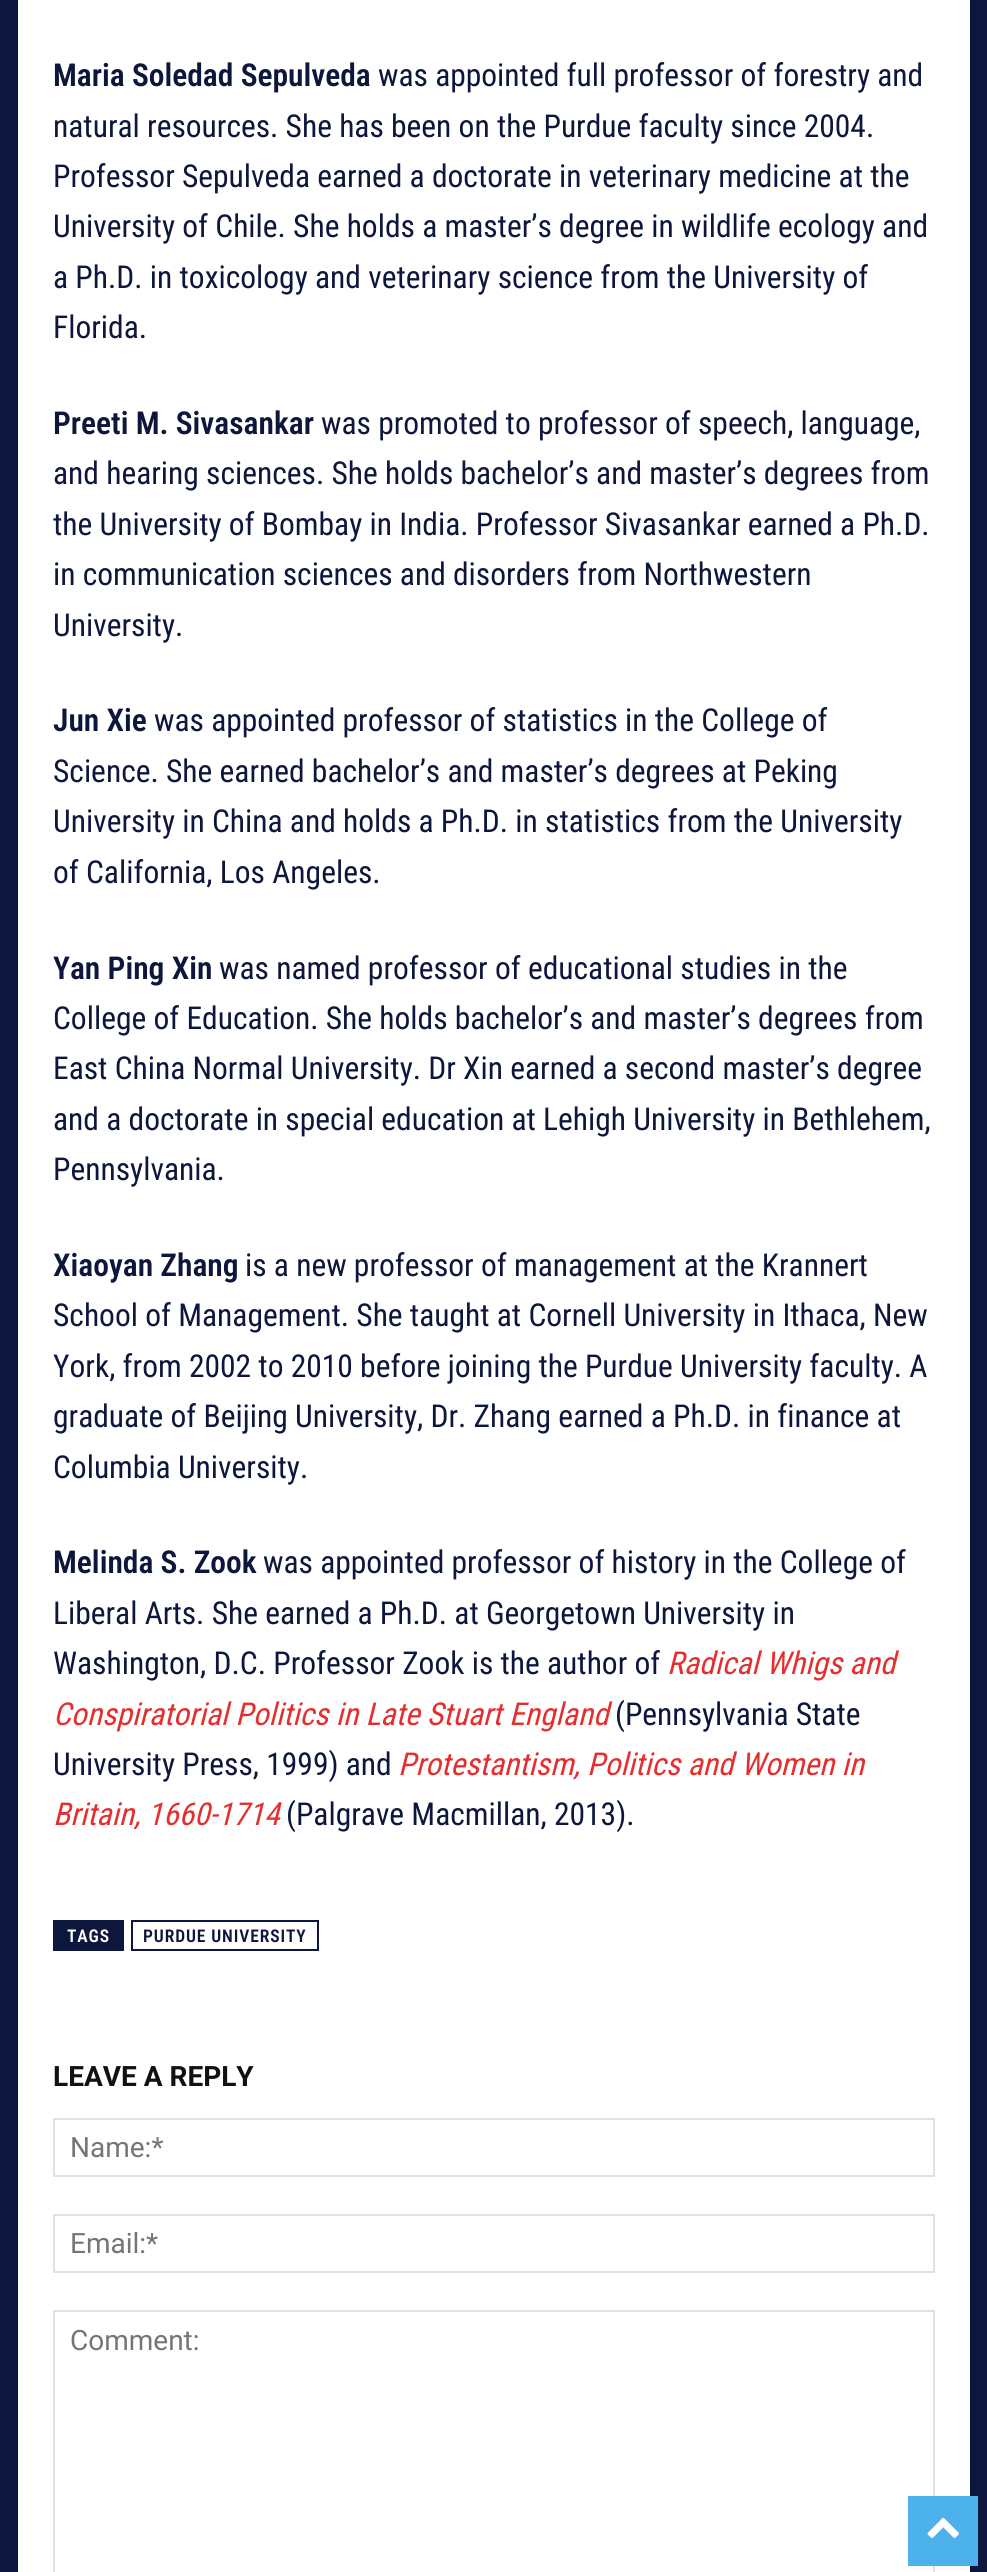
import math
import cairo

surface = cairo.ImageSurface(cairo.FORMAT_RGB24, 987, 2572)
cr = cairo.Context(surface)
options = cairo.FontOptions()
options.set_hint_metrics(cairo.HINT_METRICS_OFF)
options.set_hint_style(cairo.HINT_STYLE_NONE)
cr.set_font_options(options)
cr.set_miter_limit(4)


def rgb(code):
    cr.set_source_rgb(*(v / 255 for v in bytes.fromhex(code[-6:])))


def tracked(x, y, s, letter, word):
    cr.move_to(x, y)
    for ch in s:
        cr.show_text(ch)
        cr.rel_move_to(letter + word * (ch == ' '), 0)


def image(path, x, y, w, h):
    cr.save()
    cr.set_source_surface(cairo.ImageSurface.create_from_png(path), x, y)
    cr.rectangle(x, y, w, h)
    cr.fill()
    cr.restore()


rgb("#0d163c")
cr.paint()
rgb("#ffffff")
cr.rectangle(18, 0, 952, 2572)
cr.fill()
rgb("#0d163c")
cr.rectangle(53, 1920, 71, 31)
cr.fill()
cr.rectangle(132, 1921, 186, 29)
cr.stroke()
cr.rectangle(54, 2119, 880, 57)
rgb("#e1e1e1")
cr.stroke()
cr.rectangle(54, 2215, 880, 57)
cr.stroke()
cr.rectangle(54, 2311, 880, 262)
cr.stroke()
rgb("#4db2ec")
cr.rectangle(908, 2496, 70, 70)
cr.fill()
image("img/1.png", 927, 2517, 32, 21)
cr.select_font_face("Roboto Condensed SemiBold")
cr.set_font_size(31.5)
rgb("#0d163c")
cr.move_to(53, 86)
cr.show_text("Maria Soledad Sepulveda")
cr.select_font_face("Roboto Condensed")
for x, y, s in [
    (378, 86, "was appointed full professor of forestry and"),
    (53, 137, "natural resources. She has been on the Purdue faculty since 2004."),
    (53, 187, "Professor Sepulveda earned a doctorate in veterinary medicine at the"),
    (53, 237, "University of Chile. She holds a master’s degree in wildlife ecology and"),
    (53, 288, "a Ph.D. in toxicology and veterinary science from the University of"),
    (53, 338, "Florida."),
]:
    cr.move_to(x, y)
    cr.show_text(s)
cr.select_font_face("Roboto Condensed SemiBold")
cr.move_to(53, 434)
cr.show_text("Preeti M. Sivasankar")
cr.select_font_face("Roboto Condensed")
for x, y, s in [
    (321, 434, "was promoted to professor of speech, language,"),
    (53, 484, "and hearing sciences. She holds bachelor’s and master’s degrees from"),
    (53, 535, "the University of Bombay in India. Professor Sivasankar earned a Ph.D."),
    (53, 585, "in communication sciences and disorders from Northwestern"),
    (53, 636, "University."),
]:
    cr.move_to(x, y)
    cr.show_text(s)
cr.select_font_face("Roboto Condensed SemiBold")
cr.move_to(53, 731)
cr.show_text("Jun Xie")
cr.select_font_face("Roboto Condensed")
for x, y, s in [
    (154, 731, "was appointed professor of statistics in the College of"),
    (53, 782, "Science. She earned bachelor’s and master’s degrees at Peking"),
    (53, 832, "University in China and holds a Ph.D. in statistics from the University"),
    (53, 883, "of California, Los Angeles."),
]:
    cr.move_to(x, y)
    cr.show_text(s)
cr.select_font_face("Roboto Condensed SemiBold")
cr.move_to(53, 979)
cr.show_text("Yan Ping Xin")
cr.select_font_face("Roboto Condensed")
for x, y, s in [
    (219, 979, "was named professor of educational studies in the"),
    (53, 1029, "College of Education. She holds bachelor’s and master’s degrees from"),
    (53, 1079, "East China Normal University. Dr Xin earned a second master’s degree"),
    (53, 1130, "and a doctorate in special education at Lehigh University in Bethlehem,"),
    (53, 1180, "Pennsylvania."),
]:
    cr.move_to(x, y)
    cr.show_text(s)
cr.select_font_face("Roboto Condensed SemiBold")
cr.move_to(53, 1276)
cr.show_text("Xiaoyan Zhang")
cr.select_font_face("Roboto Condensed")
for x, y, s in [
    (245, 1276, "is a new professor of management at the Krannert"),
    (53, 1326, "School of Management. She taught at Cornell University in Ithaca, New"),
    (53, 1377, "York, from 2002 to 2010 before joining the Purdue University faculty. A"),
    (53, 1427, "graduate of Beijing University, Dr. Zhang earned a Ph.D. in finance at"),
    (53, 1478, "Columbia University."),
]:
    cr.move_to(x, y)
    cr.show_text(s)
cr.select_font_face("Roboto Condensed SemiBold")
cr.move_to(53, 1573)
cr.show_text("Melinda S. Zook")
cr.select_font_face("Roboto Condensed")
for x, y, s in [
    (263, 1573, "was appointed professor of history in the College of"),
    (53, 1624, "Liberal Arts. She earned a Ph.D. at Georgetown University in"),
    (53, 1674, "Washington, D.C. Professor Zook is the author of"),
]:
    cr.move_to(x, y)
    cr.show_text(s)
cr.select_font_face("Roboto Condensed", cairo.FONT_SLANT_ITALIC)
rgb("#e52e2e")
cr.move_to(667, 1674)
cr.show_text("Radical Whigs and")
cr.move_to(53, 1725)
cr.show_text("Conspiratorial Politics in Late Stuart England")
cr.select_font_face("Roboto Condensed")
rgb("#0d163c")
cr.move_to(615, 1725)
cr.show_text("(Pennsylvania State")
cr.move_to(53, 1775)
cr.show_text("University Press, 1999) and")
cr.select_font_face("Roboto Condensed", cairo.FONT_SLANT_ITALIC)
rgb("#e52e2e")
cr.move_to(398, 1775)
cr.show_text("Protestantism, Politics and Women in")
cr.move_to(53, 1825)
cr.show_text("Britain, 1660-1714")
cr.select_font_face("Roboto Condensed")
rgb("#0d163c")
cr.move_to(286, 1825)
cr.show_text("(Palgrave Macmillan, 2013).")
cr.select_font_face("Roboto Condensed SemiBold")
cr.set_font_size(17.5)
rgb("#ffffff")
tracked(67, 1942, "TAGS", 0.9, 0)
rgb("#0d163c")
tracked(143, 1942, "PURDUE UNIVERSITY", 0.9, 0)
cr.select_font_face("Roboto", cairo.FONT_SLANT_NORMAL, cairo.FONT_WEIGHT_BOLD)
cr.set_font_size(28)
rgb("#111111")
cr.move_to(53, 2086)
cr.show_text("LEAVE A REPLY")
cr.select_font_face("Roboto")
rgb("#757575")
for x, y, s in [
    (70, 2157, "Name:*"),
    (70, 2253, "Email:*"),
    (70, 2350, "Comment:"),
]:
    cr.move_to(x, y)
    cr.show_text(s)
surface.write_to_png("page.png")
